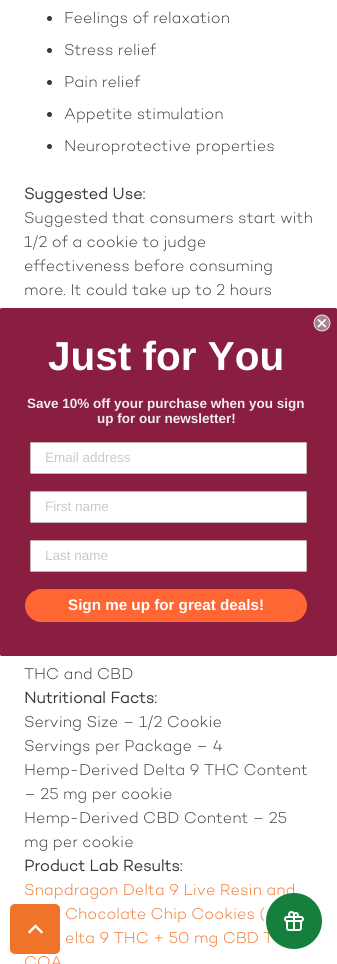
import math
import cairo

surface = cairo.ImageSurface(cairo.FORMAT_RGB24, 337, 964)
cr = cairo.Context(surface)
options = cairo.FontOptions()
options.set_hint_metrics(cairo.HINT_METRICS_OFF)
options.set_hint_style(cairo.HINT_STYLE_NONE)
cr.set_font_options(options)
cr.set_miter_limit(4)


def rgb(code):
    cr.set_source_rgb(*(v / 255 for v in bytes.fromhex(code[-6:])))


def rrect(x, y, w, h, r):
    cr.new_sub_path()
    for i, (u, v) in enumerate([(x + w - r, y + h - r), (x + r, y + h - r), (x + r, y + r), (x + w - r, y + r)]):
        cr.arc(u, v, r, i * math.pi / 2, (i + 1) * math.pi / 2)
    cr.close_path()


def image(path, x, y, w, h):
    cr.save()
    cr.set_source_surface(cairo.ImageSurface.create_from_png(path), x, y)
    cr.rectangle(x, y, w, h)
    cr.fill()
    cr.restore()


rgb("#ffffff")
cr.paint()
rgb("#3d3632")
cr.arc(49.5, 18.5, 2.5, 0, 2 * math.pi)
cr.fill()
cr.arc(49.5, 50.5, 2.5, 0, 2 * math.pi)
cr.fill()
cr.arc(49.5, 82.5, 2.5, 0, 2 * math.pi)
cr.fill()
cr.arc(49.5, 114.5, 2.5, 0, 2 * math.pi)
cr.fill()
cr.arc(49.5, 146.5, 2.5, 0, 2 * math.pi)
cr.fill()
rgb("#8a1e41")
rrect(0, 308, 337, 348, 1.5)
cr.fill()
image("img/1.png", 313, 314, 18, 18)
rgb("#ffffff")
rrect(30.4, 442.4, 276.2, 31.2, 1.1)
cr.fill_preserve()
rgb("#c4b8b1")
cr.set_line_width(0.8)
cr.stroke()
rgb("#ffffff")
rrect(30.4, 491.4, 276.2, 31.2, 1.1)
cr.fill_preserve()
rgb("#c4b8b1")
cr.stroke()
rgb("#ffffff")
rrect(30.4, 540.4, 276.2, 31.2, 1.1)
cr.fill_preserve()
rgb("#c4b8b1")
cr.stroke()
rgb("#ff6633")
rrect(25, 589, 282, 33, 16.5)
cr.fill()
rgb("#ef742a")
rrect(10, 904, 50, 50, 5)
cr.fill()
image("img/2.png", 28, 924, 15, 10)
cr.select_font_face("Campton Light")
cr.set_font_size(16)
rgb("#3d3632")
for x, y, s in [
    (64, 23, "Feelings of relaxation"),
    (64, 55, "Stress relief"),
    (64, 87, "Pain relief"),
    (64, 119, "Appetite stimulation"),
    (64, 151, "Neuroprotective properties"),
]:
    cr.move_to(x, y)
    cr.show_text(s)
cr.select_font_face("Campton", cairo.FONT_SLANT_NORMAL, cairo.FONT_WEIGHT_BOLD)
cr.move_to(24, 199)
cr.show_text("Suggested Use:")
cr.select_font_face("Campton Light")
for x, y, s in [
    (24, 223, "Suggested that consumers start with"),
    (24, 247, "1/2 of a cookie to judge"),
    (24, 271, "effectiveness before consuming"),
    (24, 295, "more. It could take up to 2 hours"),
    (24, 679, "THC and CBD"),
]:
    cr.move_to(x, y)
    cr.show_text(s)
cr.select_font_face("Campton", cairo.FONT_SLANT_NORMAL, cairo.FONT_WEIGHT_BOLD)
cr.move_to(24, 703)
cr.show_text("Nutritional Facts:")
cr.select_font_face("Campton Light")
for x, y, s in [
    (24, 727, "Serving Size – 1/2 Cookie"),
    (24, 751, "Servings per Package – 4"),
    (24, 775, "Hemp-Derived Delta 9 THC Content"),
    (24, 799, "– 25 mg per cookie"),
    (24, 823, "Hemp-Derived CBD Content – 25"),
    (24, 847, "mg per cookie"),
]:
    cr.move_to(x, y)
    cr.show_text(s)
cr.select_font_face("Campton", cairo.FONT_SLANT_NORMAL, cairo.FONT_WEIGHT_BOLD)
cr.move_to(24, 871)
cr.show_text("Product Lab Results:")
cr.select_font_face("Campton Light")
rgb("#ef742a")
for x, y, s in [
    (24, 895, "Snapdragon Delta 9 Live Resin and"),
    (65, 919, "Chocolate Chip Cookies ("),
    (65, 943, "elta 9 THC + 50 mg CBD T"),
    (24, 967, "COA"),
]:
    cr.move_to(x, y)
    cr.show_text(s)
cr.select_font_face("Liberation Sans", cairo.FONT_SLANT_NORMAL, cairo.FONT_WEIGHT_BOLD)
cr.set_font_size(40.5)
rgb("#ffffff")
cr.move_to(48, 370)
cr.show_text("Just for You")
cr.set_font_size(13.5)
rgb("#eeeeee")
cr.move_to(27, 408)
cr.show_text("Save 10% off your purchase when you sign")
cr.move_to(97, 423)
cr.show_text("up for our newsletter!")
cr.select_font_face("Liberation Sans")
rgb("#cacacb")
for x, y, s in [
    (45, 462, "Email address"),
    (45, 511, "First name"),
    (45, 560, "Last name"),
]:
    cr.move_to(x, y)
    cr.show_text(s)
cr.select_font_face("Liberation Sans", cairo.FONT_SLANT_NORMAL, cairo.FONT_WEIGHT_BOLD)
cr.set_font_size(15.2)
rgb("#ffffff")
cr.move_to(68, 610)
cr.show_text("Sign me up for great deals!")
rgb("#15803d")
cr.new_path()
cr.arc(294, 921, 28, 0, 2 * math.pi)
cr.fill()
image("img/3.png", 284, 911, 20, 20)
surface.write_to_png("page.png")
